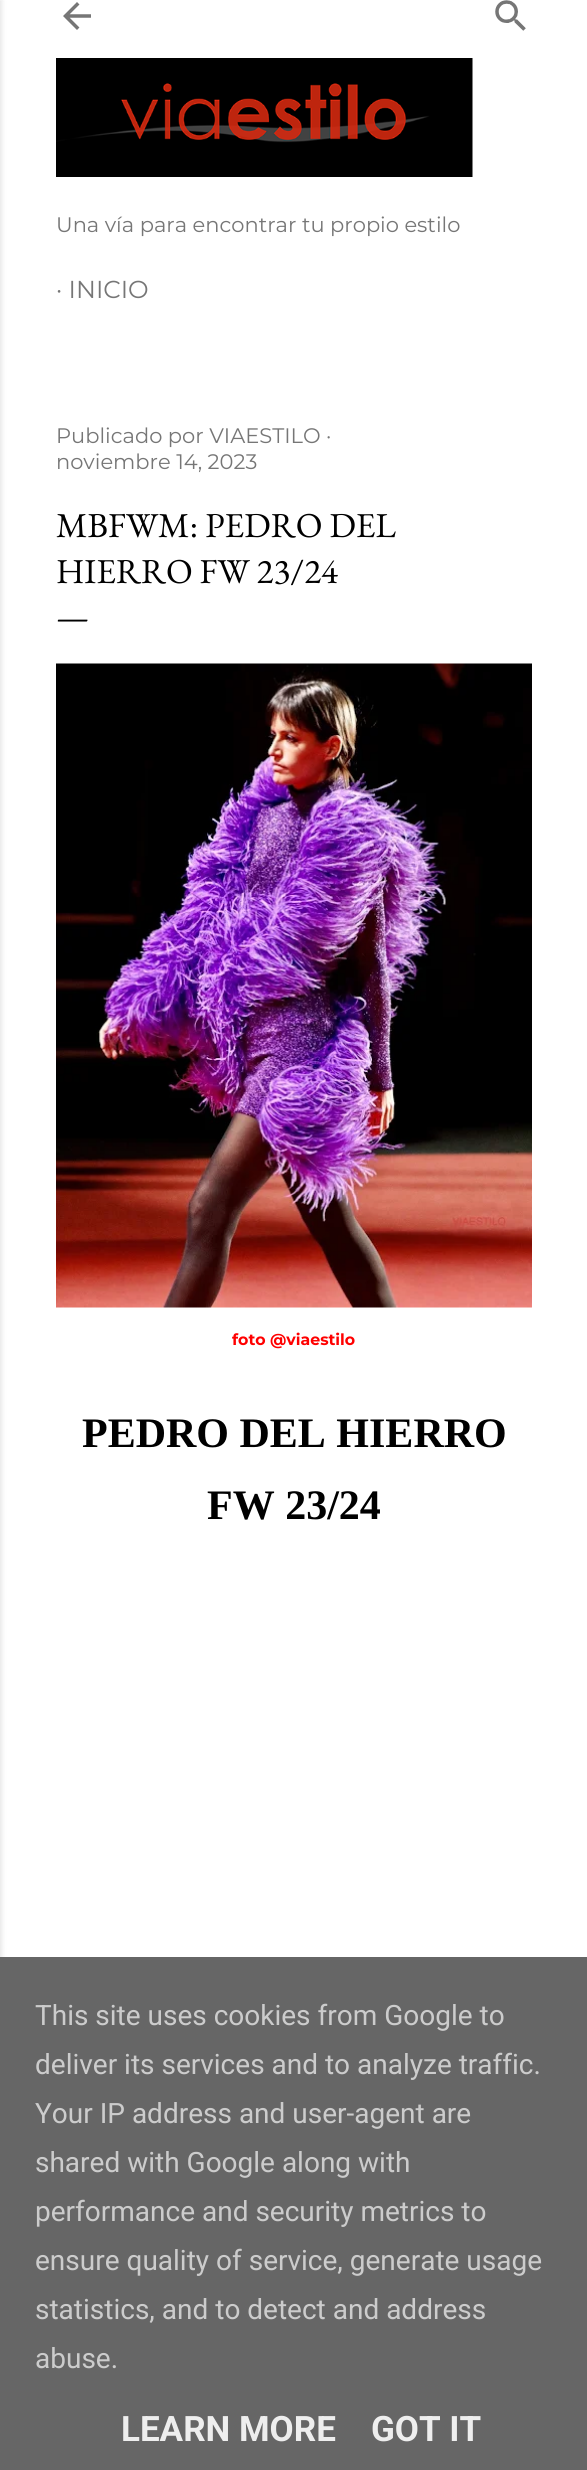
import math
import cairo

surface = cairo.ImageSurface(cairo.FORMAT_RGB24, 587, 2470)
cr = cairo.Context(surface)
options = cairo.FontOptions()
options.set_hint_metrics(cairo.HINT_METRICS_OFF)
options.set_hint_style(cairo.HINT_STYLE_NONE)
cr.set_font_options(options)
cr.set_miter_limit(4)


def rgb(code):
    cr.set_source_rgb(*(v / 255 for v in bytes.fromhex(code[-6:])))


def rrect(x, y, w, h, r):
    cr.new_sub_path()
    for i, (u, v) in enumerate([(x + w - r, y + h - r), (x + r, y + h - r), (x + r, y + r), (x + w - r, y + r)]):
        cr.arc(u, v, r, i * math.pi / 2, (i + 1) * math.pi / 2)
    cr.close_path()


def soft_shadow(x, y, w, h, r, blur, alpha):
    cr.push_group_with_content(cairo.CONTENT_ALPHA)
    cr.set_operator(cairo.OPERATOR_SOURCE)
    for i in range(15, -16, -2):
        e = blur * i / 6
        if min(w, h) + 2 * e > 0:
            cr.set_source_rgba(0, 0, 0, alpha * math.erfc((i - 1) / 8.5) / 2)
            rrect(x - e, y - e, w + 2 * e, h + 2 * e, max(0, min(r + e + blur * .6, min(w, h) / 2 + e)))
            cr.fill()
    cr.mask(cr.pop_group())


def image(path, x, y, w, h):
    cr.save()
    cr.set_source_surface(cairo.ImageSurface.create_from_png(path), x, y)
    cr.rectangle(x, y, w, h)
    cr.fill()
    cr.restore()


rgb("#ffffff")
cr.paint()
rgb("#000000")
soft_shadow(-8, 0, 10, 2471, 0, 2.5, 0.1)
image("img/1.png", 63, 2, 28, 28)
image("img/2.png", 495, 0, 31, 31)
image("img/3.png", 56, 58, 417, 119)
image("img/4.png", 56, 663, 476, 645)
rgb("#666666")
cr.rectangle(0, 1957, 587, 513)
cr.fill()
cr.select_font_face("Montserrat")
cr.set_font_size(21)
rgb("#767676")
cr.move_to(56, 232)
cr.show_text("Una vía para encontrar tu propio estilo")
cr.set_font_size(24.5)
cr.move_to(56, 298)
cr.show_text("· INICIO")
cr.set_font_size(21)
cr.move_to(56, 443)
cr.show_text("Publicado por VIAESTILO ·")
cr.move_to(56, 469)
cr.show_text("noviembre 14, 2023")
cr.select_font_face("EB Garamond")
cr.set_font_size(35)
rgb("#000000")
for x, y, s in [
    (56, 537, "MBFWM: PEDRO DEL"),
    (56, 583, "HIERRO FW 23/24"),
    (56, 628, "—"),
]:
    cr.move_to(x, y)
    cr.show_text(s)
cr.select_font_face("Montserrat", cairo.FONT_SLANT_NORMAL, cairo.FONT_WEIGHT_BOLD)
cr.set_font_size(15.75)
rgb("#ff0000")
cr.move_to(232, 1345)
cr.show_text("foto @viaestilo")
cr.select_font_face("Liberation Serif", cairo.FONT_SLANT_NORMAL, cairo.FONT_WEIGHT_BOLD)
cr.set_font_size(42)
rgb("#000000")
cr.move_to(82, 1447)
cr.show_text("PEDRO DEL HIERRO")
cr.move_to(207, 1519)
cr.show_text("FW 23/24")
cr.select_font_face("Roboto")
cr.set_font_size(28)
rgb("#cccccc")
for x, y, s in [
    (35, 2025, "This site uses cookies from Google to"),
    (35, 2074, "deliver its services and to analyze traffic."),
    (35, 2123, "Your IP address and user-agent are"),
    (35, 2172, "shared with Google along with"),
    (35, 2221, "performance and security metrics to"),
    (35, 2270, "ensure quality of service, generate usage"),
    (35, 2319, "statistics, and to detect and address"),
    (35, 2368, "abuse."),
]:
    cr.move_to(x, y)
    cr.show_text(s)
cr.select_font_face("Roboto", cairo.FONT_SLANT_NORMAL, cairo.FONT_WEIGHT_BOLD)
cr.set_font_size(35)
rgb("#eeeeee")
cr.move_to(121, 2441)
cr.show_text("LEARN MORE")
cr.move_to(371, 2441)
cr.show_text("GOT IT")
surface.write_to_png("page.png")
